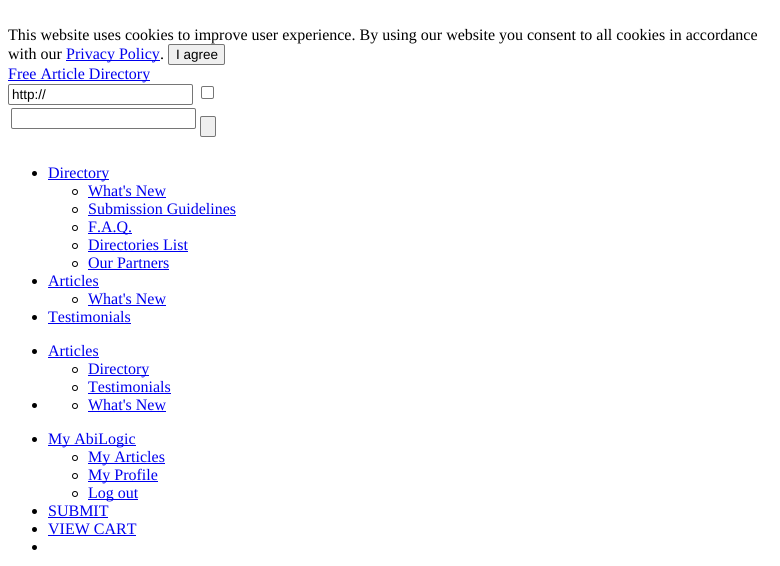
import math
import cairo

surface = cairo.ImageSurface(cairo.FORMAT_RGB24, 780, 566)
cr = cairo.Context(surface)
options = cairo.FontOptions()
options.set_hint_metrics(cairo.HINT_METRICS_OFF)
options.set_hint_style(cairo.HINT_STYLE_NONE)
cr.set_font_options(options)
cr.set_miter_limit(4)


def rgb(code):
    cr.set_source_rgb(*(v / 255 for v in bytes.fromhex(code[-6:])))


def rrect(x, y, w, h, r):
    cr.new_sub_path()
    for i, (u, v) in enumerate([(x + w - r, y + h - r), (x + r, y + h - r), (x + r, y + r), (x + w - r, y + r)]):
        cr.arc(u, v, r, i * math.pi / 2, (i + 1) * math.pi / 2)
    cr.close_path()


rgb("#ffffff")
cr.paint()
rgb("#0000ee")
cr.rectangle(66, 60, 94, 1)
cr.fill()
rgb("#efefef")
rrect(168.5, 44.5, 56, 20, 1.5)
cr.fill_preserve()
rgb("#767676")
cr.set_line_width(1)
cr.stroke()
rgb("#0000ee")
cr.rectangle(8, 80, 142, 1)
cr.fill()
rrect(8.5, 84.5, 184, 20, 1.5)
rgb("#767676")
cr.stroke()
rrect(201.5, 86.5, 12, 12, 1.5)
cr.stroke()
rrect(11.5, 108.5, 184, 20, 1.5)
cr.stroke()
rgb("#efefef")
rrect(200.5, 116.5, 15, 20, 1.5)
cr.fill_preserve()
rgb("#767676")
cr.stroke()
rgb("#000000")
cr.arc(34.5, 173.5, 2.5, 0, 2 * math.pi)
cr.fill()
rgb("#0000ee")
cr.rectangle(48, 179, 61, 1)
cr.fill()
cr.arc(75, 192, 2.5, 0, 2 * math.pi)
rgb("#000000")
cr.stroke()
rgb("#0000ee")
cr.rectangle(88, 197, 78, 1)
cr.fill()
cr.arc(75, 210, 2.5, 0, 2 * math.pi)
rgb("#000000")
cr.stroke()
rgb("#0000ee")
cr.rectangle(88, 215, 148, 1)
cr.fill()
cr.arc(75, 228, 2.5, 0, 2 * math.pi)
rgb("#000000")
cr.stroke()
rgb("#0000ee")
cr.rectangle(88, 233, 44, 1)
cr.fill()
cr.arc(75, 246, 2.5, 0, 2 * math.pi)
rgb("#000000")
cr.stroke()
rgb("#0000ee")
cr.rectangle(88, 251, 100, 1)
cr.fill()
cr.arc(75, 264, 2.5, 0, 2 * math.pi)
rgb("#000000")
cr.stroke()
rgb("#0000ee")
cr.rectangle(88, 269, 81, 1)
cr.fill()
rgb("#000000")
cr.arc(34.5, 281.5, 2.5, 0, 2 * math.pi)
cr.fill()
rgb("#0000ee")
cr.rectangle(48, 287, 51, 1)
cr.fill()
cr.arc(75, 300, 2.5, 0, 2 * math.pi)
rgb("#000000")
cr.stroke()
rgb("#0000ee")
cr.rectangle(88, 305, 78, 1)
cr.fill()
rgb("#000000")
cr.arc(34.5, 317.5, 2.5, 0, 2 * math.pi)
cr.fill()
rgb("#0000ee")
cr.rectangle(48, 323, 83, 1)
cr.fill()
rgb("#000000")
cr.arc(34.5, 351.5, 2.5, 0, 2 * math.pi)
cr.fill()
rgb("#0000ee")
cr.rectangle(48, 357, 51, 1)
cr.fill()
cr.arc(75, 370, 2.5, 0, 2 * math.pi)
rgb("#000000")
cr.stroke()
rgb("#0000ee")
cr.rectangle(88, 375, 61, 1)
cr.fill()
cr.arc(75, 388, 2.5, 0, 2 * math.pi)
rgb("#000000")
cr.stroke()
rgb("#0000ee")
cr.rectangle(88, 393, 83, 1)
cr.fill()
rgb("#000000")
cr.arc(34.5, 405.5, 2.5, 0, 2 * math.pi)
cr.fill()
cr.arc(75, 406, 2.5, 0, 2 * math.pi)
cr.stroke()
rgb("#0000ee")
cr.rectangle(88, 411, 78, 1)
cr.fill()
rgb("#000000")
cr.arc(34.5, 439.5, 2.5, 0, 2 * math.pi)
cr.fill()
rgb("#0000ee")
cr.rectangle(48, 445, 88, 1)
cr.fill()
cr.arc(75, 458, 2.5, 0, 2 * math.pi)
rgb("#000000")
cr.stroke()
rgb("#0000ee")
cr.rectangle(88, 463, 77, 1)
cr.fill()
cr.arc(75, 476, 2.5, 0, 2 * math.pi)
rgb("#000000")
cr.stroke()
rgb("#0000ee")
cr.rectangle(88, 481, 70, 1)
cr.fill()
cr.arc(75, 494, 2.5, 0, 2 * math.pi)
rgb("#000000")
cr.stroke()
rgb("#0000ee")
cr.rectangle(88, 499, 50, 1)
cr.fill()
rgb("#000000")
cr.arc(34.5, 511.5, 2.5, 0, 2 * math.pi)
cr.fill()
rgb("#0000ee")
cr.rectangle(48, 517, 60, 1)
cr.fill()
rgb("#000000")
cr.arc(34.5, 529.5, 2.5, 0, 2 * math.pi)
cr.fill()
rgb("#0000ee")
cr.rectangle(48, 535, 88, 1)
cr.fill()
rgb("#000000")
cr.arc(34.5, 547.5, 2.5, 0, 2 * math.pi)
cr.fill()
cr.select_font_face("Liberation Serif")
cr.set_font_size(16)
cr.move_to(8, 40)
cr.show_text("This website uses cookies to improve user experience. By using our website you consent to all cookies in accordance")
cr.move_to(8, 59)
cr.show_text("with our")
rgb("#0000ee")
cr.move_to(66, 59)
cr.show_text("Privacy Policy")
rgb("#000000")
cr.move_to(160, 59)
cr.show_text(".")
cr.select_font_face("Liberation Sans")
cr.set_font_size(13.5)
cr.move_to(176, 59)
cr.show_text("I agree")
cr.select_font_face("Liberation Serif")
cr.set_font_size(16)
rgb("#0000ee")
cr.move_to(8, 79)
cr.show_text("Free Article Directory")
cr.select_font_face("Liberation Sans")
cr.set_font_size(13.5)
rgb("#000000")
cr.move_to(12, 99)
cr.show_text("http://")
cr.select_font_face("Liberation Serif")
cr.set_font_size(16)
rgb("#0000ee")
for x, y, s in [
    (48, 178, "Directory"),
    (88, 196, "What's New"),
    (88, 214, "Submission Guidelines"),
    (88, 232, "F.A.Q."),
    (88, 250, "Directories List"),
    (88, 268, "Our Partners"),
    (48, 286, "Articles"),
    (88, 304, "What's New"),
    (48, 322, "Testimonials"),
    (48, 356, "Articles"),
    (88, 374, "Directory"),
    (88, 392, "Testimonials"),
    (88, 410, "What's New"),
    (48, 444, "My AbiLogic"),
    (88, 462, "My Articles"),
    (88, 480, "My Profile"),
    (88, 498, "Log out"),
    (48, 516, "SUBMIT"),
    (48, 534, "VIEW CART"),
]:
    cr.move_to(x, y)
    cr.show_text(s)
surface.write_to_png("page.png")
